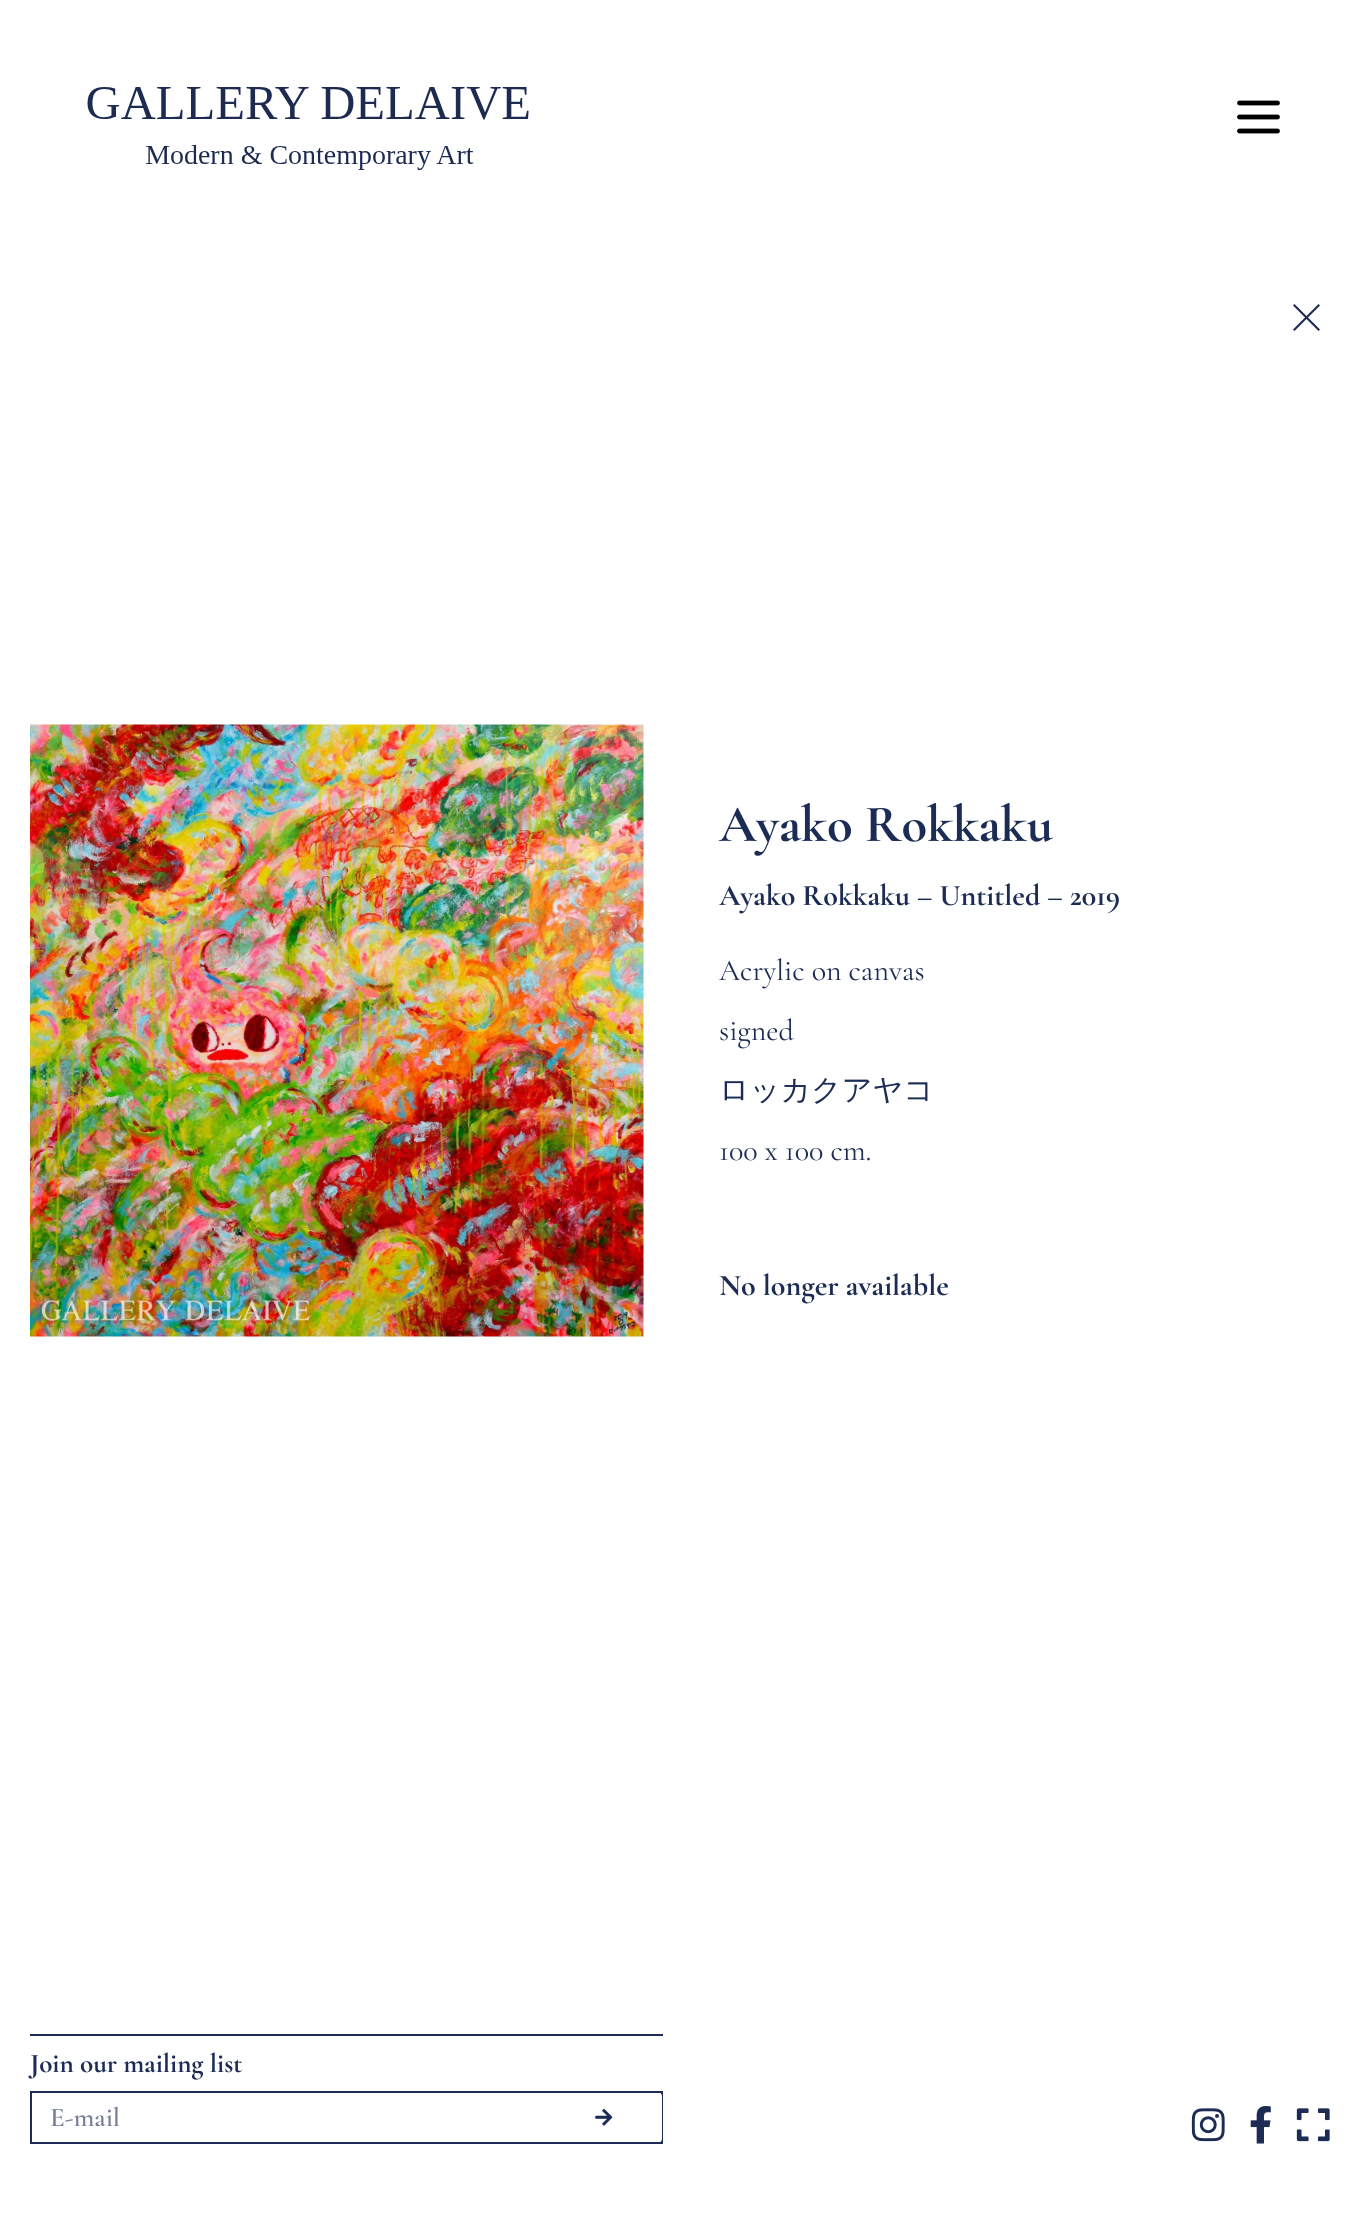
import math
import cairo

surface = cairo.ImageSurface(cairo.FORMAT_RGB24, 1361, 2232)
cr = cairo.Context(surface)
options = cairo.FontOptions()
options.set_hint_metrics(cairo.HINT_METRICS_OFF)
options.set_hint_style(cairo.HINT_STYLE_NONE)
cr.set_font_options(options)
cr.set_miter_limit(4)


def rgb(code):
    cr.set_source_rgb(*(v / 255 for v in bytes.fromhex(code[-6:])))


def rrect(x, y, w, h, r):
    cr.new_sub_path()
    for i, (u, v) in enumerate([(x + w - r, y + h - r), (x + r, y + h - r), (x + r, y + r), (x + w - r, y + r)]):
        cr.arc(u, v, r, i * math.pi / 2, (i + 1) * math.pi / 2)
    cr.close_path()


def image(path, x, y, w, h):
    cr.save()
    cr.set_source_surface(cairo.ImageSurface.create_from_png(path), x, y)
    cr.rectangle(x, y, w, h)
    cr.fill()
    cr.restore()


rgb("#ffffff")
cr.paint()
image("img/1.png", 87, 87, 442, 83)
cr.new_path()
cr.move_to(1239.5, 131)
cr.line_to(1277.5, 131)
cr.move_to(1239.5, 117)
cr.line_to(1277.5, 117)
cr.move_to(1239.5, 103)
cr.line_to(1277.5, 103)
rgb("#000000")
cr.set_line_width(4.8)
cr.set_line_cap(cairo.LINE_CAP_ROUND)
cr.stroke()
image("img/2.png", 30, 724, 614, 613)
rgb("#1d2b54")
cr.new_path()
cr.move_to(1294.5, 304)
cr.line_to(1320, 329.5)
cr.line_to(1318.5, 331)
cr.line_to(1293, 305.5)
cr.close_path()
cr.fill()
cr.new_path()
cr.move_to(1293, 329.5)
cr.line_to(1318.5, 304)
cr.line_to(1320, 305.5)
cr.line_to(1294.5, 331)
cr.close_path()
cr.fill()
rgb("#1c2c54")
cr.rectangle(30, 2034, 633, 2)
cr.fill()
cr.rectangle(31, 2092, 631, 51)
cr.set_line_width(2)
cr.set_line_cap(cairo.LINE_CAP_BUTT)
cr.stroke()
rgb("#ffffff")
rrect(548, 2093, 114, 49, 3)
cr.fill()
image("img/3.png", 595, 2109, 18, 17)
image("img/4.png", 1191, 2108, 34, 34)
image("img/5.png", 1250, 2106, 21, 38)
image("img/6.png", 1296, 2108, 34, 34)
cr.select_font_face("Cormorant Garamond", cairo.FONT_SLANT_NORMAL, cairo.FONT_WEIGHT_BOLD)
cr.set_font_size(52.5)
rgb("#1c2c54")
cr.move_to(719, 841)
cr.show_text("Ayako Rokkaku")
cr.set_font_size(30)
cr.move_to(719, 905)
cr.show_text("Ayako Rokkaku – Untitled – 2019")
cr.select_font_face("Cormorant Garamond")
cr.move_to(719, 980)
cr.show_text("Acrylic on canvas")
cr.move_to(719, 1040)
cr.show_text("signed")
cr.select_font_face("WenQuanYi Zen Hei Medium")
cr.move_to(719, 1100)
cr.show_text("ロッカクアヤコ")
cr.select_font_face("Cormorant Garamond")
cr.move_to(719, 1160)
cr.show_text("100 x 100 cm.")
cr.select_font_face("Cormorant Garamond", cairo.FONT_SLANT_NORMAL, cairo.FONT_WEIGHT_BOLD)
cr.move_to(719, 1295)
cr.show_text("No longer available")
cr.set_font_size(27)
cr.move_to(30, 2072)
cr.show_text("Join our mailing list")
cr.select_font_face("Cormorant Garamond SemiBold")
rgb("#778098")
cr.move_to(50, 2126)
cr.show_text("E-mail")
surface.write_to_png("page.png")
